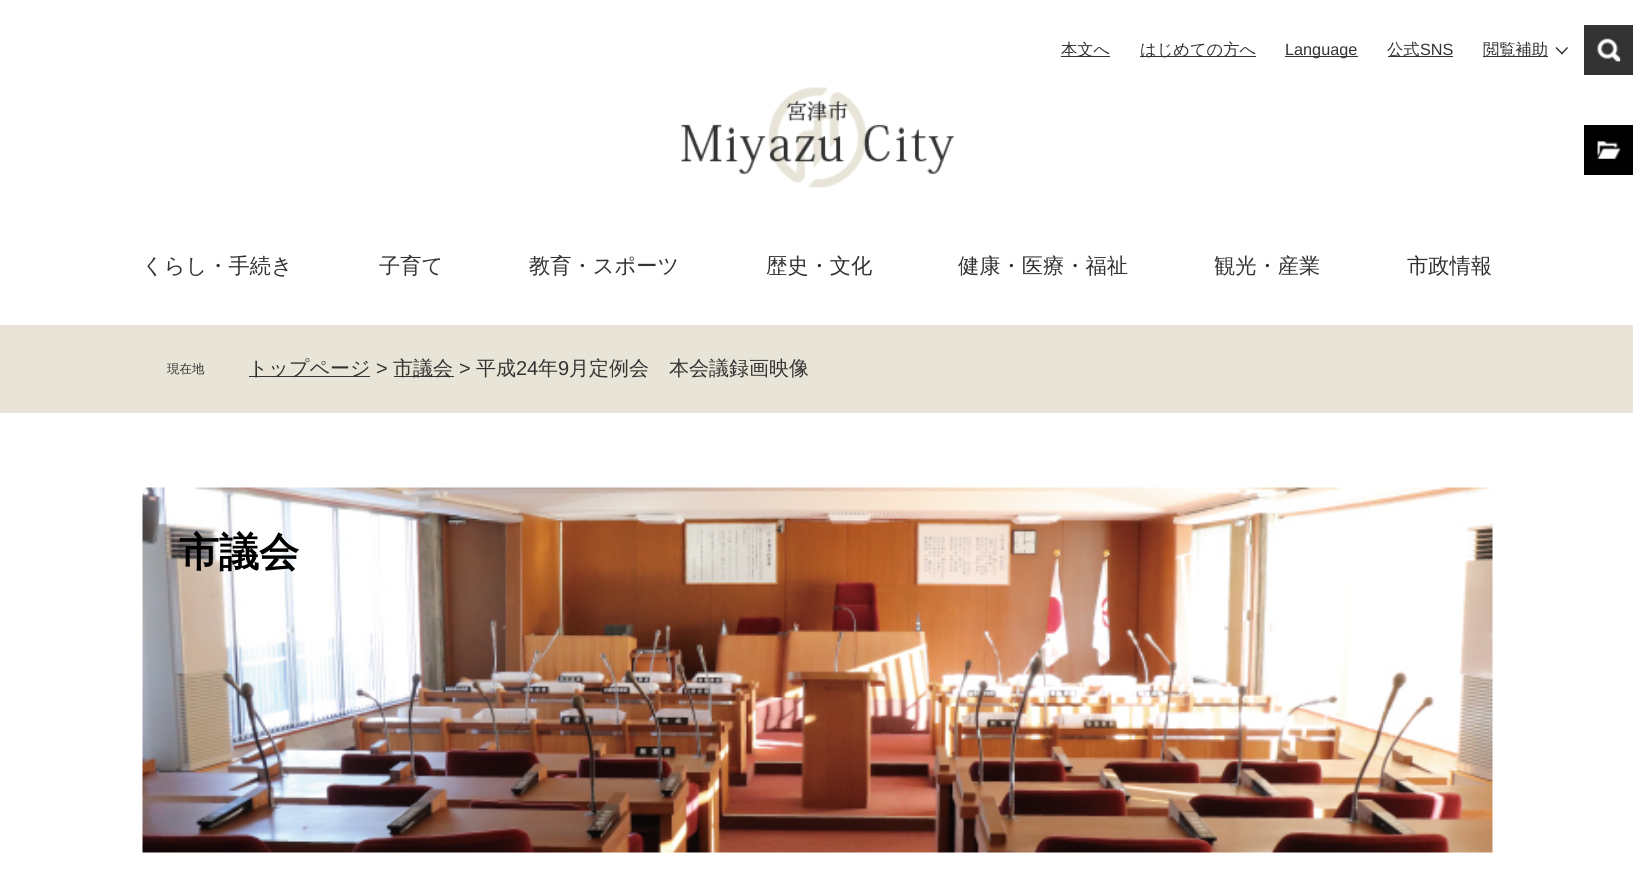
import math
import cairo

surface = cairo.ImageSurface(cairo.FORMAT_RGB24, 1633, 889)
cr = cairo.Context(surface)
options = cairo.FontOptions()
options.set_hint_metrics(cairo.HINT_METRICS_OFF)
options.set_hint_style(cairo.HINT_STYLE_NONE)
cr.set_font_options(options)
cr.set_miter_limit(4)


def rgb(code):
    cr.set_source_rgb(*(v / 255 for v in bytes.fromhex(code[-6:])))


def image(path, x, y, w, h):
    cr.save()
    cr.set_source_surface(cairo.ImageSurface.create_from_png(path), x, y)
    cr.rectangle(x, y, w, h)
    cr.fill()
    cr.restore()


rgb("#ffffff")
cr.paint()
for x, y, w, h, color in [
    (1061, 56, 49, 1, "#333333"),
    (1140, 56, 116, 1, "#333333"),
    (1285, 56, 73, 1, "#333333"),
    (1388, 56, 65, 1, "#333333"),
    (1483, 56, 65, 1, "#333333"),
]:
    rgb(color)
    cr.rectangle(x, y, w, h)
    cr.fill()
cr.new_path()
cr.move_to(1567, 47)
cr.line_to(1568, 48)
cr.line_to(1562, 54.5)
cr.line_to(1561, 53.5)
cr.close_path()
cr.fill()
cr.new_path()
cr.move_to(1556.5, 47)
cr.line_to(1563, 53.5)
cr.line_to(1562, 54.5)
cr.line_to(1555.5, 48)
cr.close_path()
cr.fill()
cr.rectangle(1584, 25, 49, 50)
cr.fill()
image("img/1.png", 1597, 38, 24, 24)
image("img/2.png", 681, 87, 273, 101)
for x, y, w, h, color in [
    (0, 325, 1633, 88, "#e8e4d7"),
    (249, 376, 121, 1, "#333333"),
    (394, 376, 60, 1, "#333333"),
]:
    rgb(color)
    cr.rectangle(x, y, w, h)
    cr.fill()
image("img/3.png", 142, 487, 1351, 366)
rgb("#000000")
cr.rectangle(1584, 125, 49, 50)
cr.fill()
image("img/4.png", 1597, 141, 24, 18)
cr.select_font_face("WenQuanYi Zen Hei Medium")
cr.set_font_size(16.25)
rgb("#333333")
cr.move_to(1061, 55)
cr.show_text("本文へ")
cr.move_to(1140, 55)
cr.show_text("はじめての方へ")
cr.select_font_face("Liberation Sans")
cr.move_to(1285, 55)
cr.show_text("Language")
cr.select_font_face("WenQuanYi Zen Hei Medium")
cr.move_to(1387, 55)
cr.show_text("公式")
cr.select_font_face("Liberation Sans")
cr.move_to(1420, 55)
cr.show_text("SNS")
cr.select_font_face("WenQuanYi Zen Hei Medium")
cr.move_to(1483, 55)
cr.show_text("閲覧補助")
cr.set_font_size(21.25)
for x, y, s in [
    (142, 273, "くらし・手続き"),
    (379, 273, "子育て"),
    (529, 273, "教育・スポーツ"),
    (766, 273, "歴史・文化"),
    (958, 273, "健康・医療・福祉"),
    (1214, 273, "観光・産業"),
    (1407, 273, "市政情報"),
]:
    cr.move_to(x, y)
    cr.show_text(s)
cr.set_font_size(12.5)
cr.move_to(167, 373)
cr.show_text("現在地")
cr.set_font_size(20)
cr.move_to(248, 375)
cr.show_text("トップページ")
cr.select_font_face("Liberation Sans")
cr.move_to(376, 375)
cr.show_text(">")
cr.select_font_face("WenQuanYi Zen Hei Medium")
cr.move_to(393, 375)
cr.show_text("市議会")
cr.select_font_face("Liberation Sans")
cr.move_to(459, 375)
cr.show_text(">")
cr.select_font_face("WenQuanYi Zen Hei Medium")
cr.move_to(476, 375)
cr.show_text("平成")
cr.select_font_face("Liberation Sans")
cr.move_to(516, 375)
cr.show_text("24")
cr.select_font_face("WenQuanYi Zen Hei Medium")
cr.move_to(538, 375)
cr.show_text("年")
cr.select_font_face("Liberation Sans")
cr.move_to(558, 375)
cr.show_text("9")
cr.select_font_face("WenQuanYi Zen Hei Medium")
cr.move_to(569, 375)
cr.show_text("月定例会　本会議録画映像")
cr.select_font_face("WenQuanYi Zen Hei", cairo.FONT_SLANT_NORMAL, cairo.FONT_WEIGHT_BOLD)
cr.set_font_size(40)
rgb("#000000")
cr.move_to(179, 566)
cr.show_text("市議会")
surface.write_to_png("page.png")
